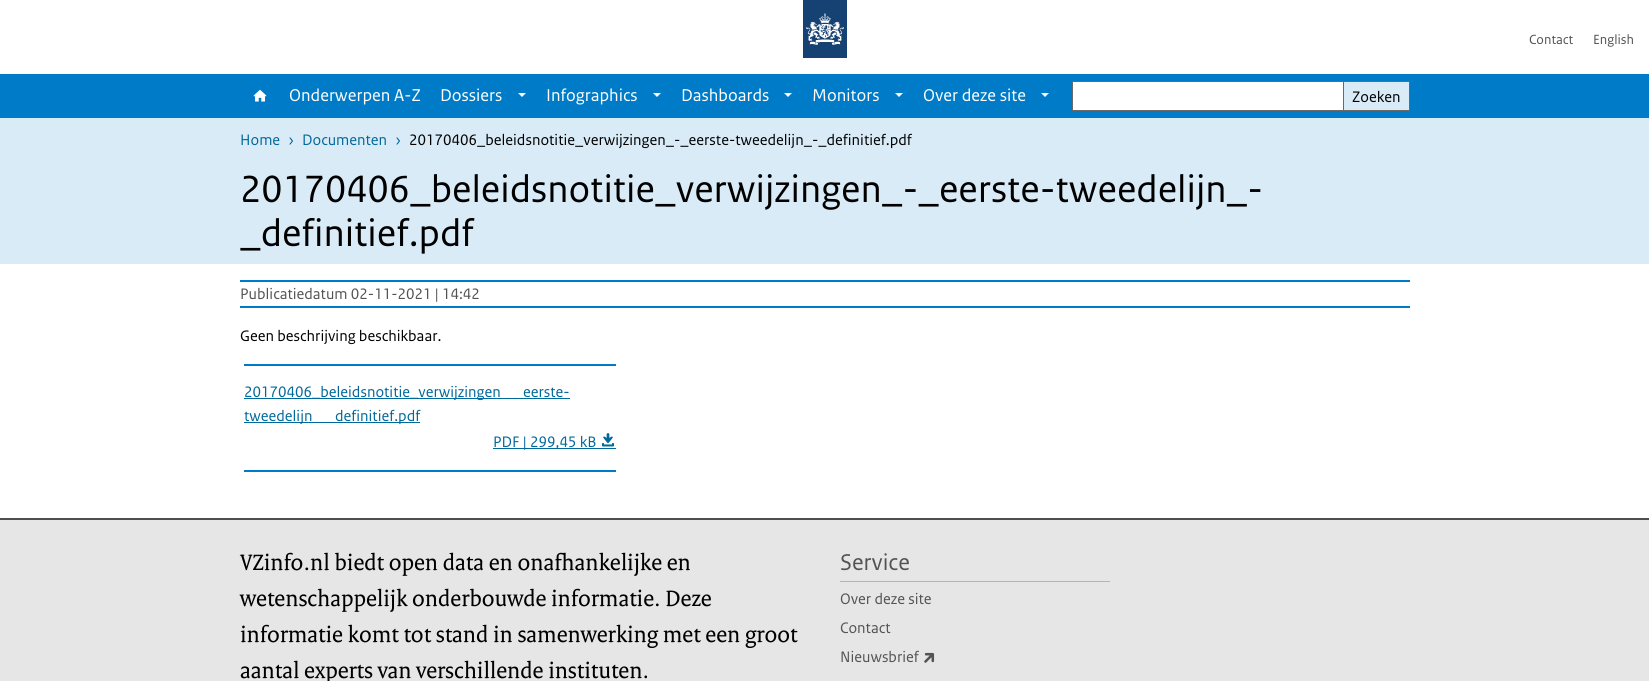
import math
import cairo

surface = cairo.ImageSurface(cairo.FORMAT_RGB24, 1649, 681)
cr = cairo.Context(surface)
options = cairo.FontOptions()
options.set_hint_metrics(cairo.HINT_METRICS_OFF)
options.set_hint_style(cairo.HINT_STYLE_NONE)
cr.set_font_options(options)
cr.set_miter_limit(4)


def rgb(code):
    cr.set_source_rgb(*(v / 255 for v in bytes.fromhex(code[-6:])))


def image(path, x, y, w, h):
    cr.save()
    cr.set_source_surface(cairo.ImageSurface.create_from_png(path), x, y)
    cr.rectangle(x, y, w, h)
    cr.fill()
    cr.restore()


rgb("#ffffff")
cr.paint()
image("img/1.png", 803, 0, 44, 58)
rgb("#007bc7")
cr.rectangle(0, 74, 1649, 44)
cr.fill()
image("img/2.png", 253, 89, 14, 13)
rgb("#ffffff")
cr.new_path()
cr.move_to(518, 93)
cr.line_to(526, 93)
cr.line_to(522, 97)
cr.close_path()
cr.fill()
cr.new_path()
cr.move_to(653, 93)
cr.line_to(661, 93)
cr.line_to(657, 97)
cr.close_path()
cr.fill()
cr.new_path()
cr.move_to(784, 93)
cr.line_to(792, 93)
cr.line_to(788, 97)
cr.close_path()
cr.fill()
cr.new_path()
cr.move_to(895, 93)
cr.line_to(903, 93)
cr.line_to(899, 97)
cr.close_path()
cr.fill()
cr.new_path()
cr.move_to(1041, 93)
cr.line_to(1049, 93)
cr.line_to(1045, 97)
cr.close_path()
cr.fill()
cr.rectangle(1072.5, 81.5, 271, 29)
cr.fill_preserve()
rgb("#696969")
cr.set_line_width(1)
cr.stroke()
for x, y, w, h, color in [
    (1344, 82, 65, 28, "#d9ebf7"),
    (1344, 81, 66, 1, "#696969"),
    (1409, 81, 1, 30, "#696969"),
    (1344, 110, 66, 1, "#696969"),
    (0, 118, 1649, 146, "#d9ebf7"),
    (240, 280, 1170, 2, "#007bc7"),
    (240, 306, 1170, 2, "#007bc7"),
    (244, 364, 372, 2, "#007bc7"),
    (244, 398, 326, 1, "#01689b"),
    (244, 422, 176, 1, "#01689b"),
    (493, 448, 123, 1, "#01689b"),
]:
    rgb(color)
    cr.rectangle(x, y, w, h)
    cr.fill()
image("img/3.png", 602, 433, 12, 14)
for x, y, w, h, color in [
    (244, 470, 372, 2, "#007bc7"),
    (0, 520, 1649, 161, "#e6e6e6"),
    (0, 518, 1649, 2, "#4e4e4e"),
    (840, 581, 270, 1, "#b4b4b4"),
]:
    rgb(color)
    cr.rectangle(x, y, w, h)
    cr.fill()
image("img/4.png", 924, 652, 11, 11)
cr.select_font_face("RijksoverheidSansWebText")
cr.set_font_size(14)
rgb("#535353")
cr.move_to(1529, 44)
cr.show_text("Contact")
cr.move_to(1593, 44)
cr.show_text("English")
cr.set_font_size(18)
rgb("#ffffff")
for x, y, s in [
    (289, 101, "Onderwerpen A-Z"),
    (440, 101, "Dossiers"),
    (546, 101, "Infographics"),
    (681, 101, "Dashboards"),
    (812, 101, "Monitors"),
    (923, 101, "Over deze site"),
]:
    cr.move_to(x, y)
    cr.show_text(s)
cr.set_font_size(16)
rgb("#000000")
cr.move_to(1352, 102)
cr.show_text("Zoeken")
rgb("#01689b")
for x, y, s in [
    (240, 145, "Home"),
    (288, 145, "›"),
    (302, 145, "Documenten"),
    (395, 145, "›"),
]:
    cr.move_to(x, y)
    cr.show_text(s)
rgb("#000000")
cr.move_to(409, 145)
cr.show_text("20170406_beleidsnotitie_verwijzingen_-_eerste-tweedelijn_-_definitief.pdf")
cr.set_font_size(40)
cr.move_to(240, 202)
cr.show_text("20170406_beleidsnotitie_verwijzingen_-_eerste-tweedelijn_-")
cr.move_to(240, 246)
cr.show_text("_definitief.pdf")
cr.set_font_size(16)
rgb("#535353")
cr.move_to(240, 299)
cr.show_text("Publicatiedatum 02-11-2021 | 14:42")
rgb("#000000")
cr.move_to(240, 341)
cr.show_text("Geen beschrijving beschikbaar.")
rgb("#01689b")
for x, y, s in [
    (244, 397, "20170406_beleidsnotitie_verwijzingen"),
    (523, 397, "eerste-"),
    (244, 421, "tweedelijn"),
    (335, 421, "definitief.pdf"),
    (493, 447, "PDF | 299,45 kB"),
]:
    cr.move_to(x, y)
    cr.show_text(s)
cr.select_font_face("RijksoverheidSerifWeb")
cr.set_font_size(24)
rgb("#000000")
for x, y, s in [
    (240, 570, "VZinfo.nl biedt open data en onafhankelijke en"),
    (240, 606, "wetenschappelijk onderbouwde informatie. Deze"),
    (240, 642, "informatie komt tot stand in samenwerking met een groot"),
    (240, 678, "aantal experts van verschillende instituten."),
]:
    cr.move_to(x, y)
    cr.show_text(s)
cr.select_font_face("RijksoverheidSansWebText")
rgb("#535353")
cr.move_to(840, 570)
cr.show_text("Service")
cr.set_font_size(16)
for x, y, s in [
    (840, 604, "Over deze site"),
    (840, 633, "Contact"),
    (840, 662, "Nieuwsbrief"),
]:
    cr.move_to(x, y)
    cr.show_text(s)
surface.write_to_png("page.png")
